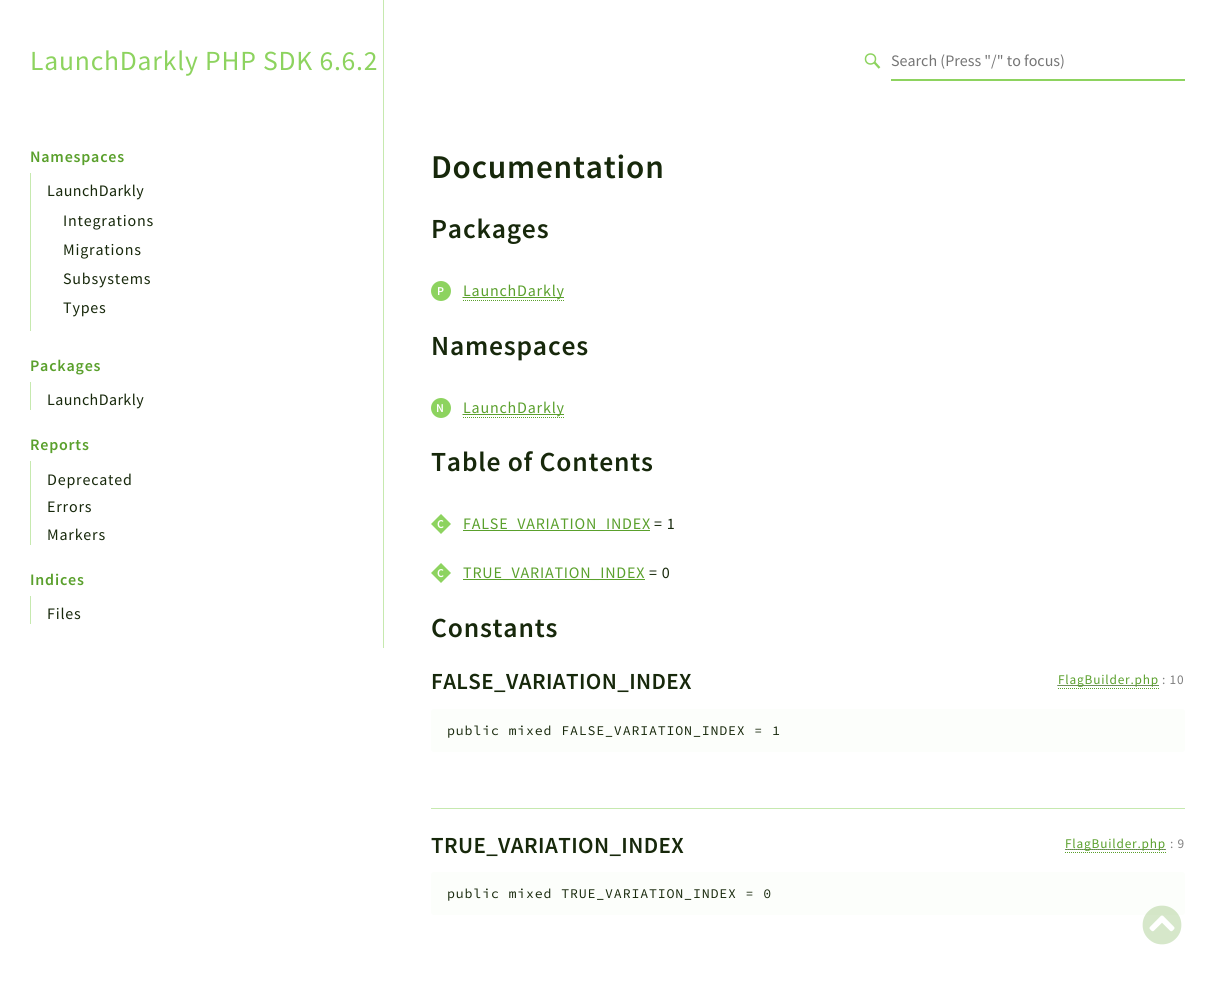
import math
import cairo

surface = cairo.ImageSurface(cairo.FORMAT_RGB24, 1215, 990)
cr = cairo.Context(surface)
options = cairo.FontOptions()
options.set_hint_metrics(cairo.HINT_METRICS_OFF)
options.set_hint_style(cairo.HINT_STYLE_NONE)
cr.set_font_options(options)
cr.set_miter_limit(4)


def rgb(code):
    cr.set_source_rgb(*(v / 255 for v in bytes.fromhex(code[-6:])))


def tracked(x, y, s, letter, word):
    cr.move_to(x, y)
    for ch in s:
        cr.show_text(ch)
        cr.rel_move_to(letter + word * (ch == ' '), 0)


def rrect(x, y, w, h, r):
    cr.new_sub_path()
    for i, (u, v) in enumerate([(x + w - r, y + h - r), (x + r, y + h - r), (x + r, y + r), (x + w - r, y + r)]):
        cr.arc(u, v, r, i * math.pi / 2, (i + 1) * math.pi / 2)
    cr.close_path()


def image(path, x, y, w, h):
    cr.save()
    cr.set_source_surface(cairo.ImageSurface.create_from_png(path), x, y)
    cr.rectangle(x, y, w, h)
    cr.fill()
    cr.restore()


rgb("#ffffff")
cr.paint()
rgb("#c6e9af")
cr.rectangle(383, 0, 1, 648)
cr.fill()
cr.arc(870.5, 59, 5, 0, 2 * math.pi)
rgb("#8dd35f")
cr.set_line_width(1.5)
cr.stroke()
cr.new_path()
cr.move_to(874.5, 62.5)
cr.line_to(879.5, 68)
cr.set_line_width(2.3)
cr.stroke()
for x, y, w, h, color in [
    (891, 79, 294, 2, "#8dd35f"),
    (30, 173, 1, 158, "#c6e9af"),
    (30, 382, 1, 28, "#c6e9af"),
    (30, 461, 1, 84, "#c6e9af"),
    (30, 596, 1, 28, "#c6e9af"),
]:
    rgb(color)
    cr.rectangle(x, y, w, h)
    cr.fill()
rgb("#8dd35f")
cr.arc(441, 291, 10, 0, 2 * math.pi)
cr.fill()
image("img/1.png", 438, 287, 6, 8)
cr.new_path()
cr.move_to(463, 300.5)
cr.line_to(564, 300.5)
rgb("#5aa02c")
cr.set_line_width(1)
cr.set_dash([1, 1])
cr.stroke()
cr.new_path()
cr.move_to(462.5, 297.5)
cr.line_to(564.5, 297.5)
cr.stroke()
cr.rectangle(463, 297, 101, 1)
cr.fill()
rgb("#8dd35f")
cr.arc(441, 408, 10, 0, 2 * math.pi)
cr.fill()
image("img/2.png", 437, 404, 6, 8)
cr.new_path()
cr.move_to(463, 417.5)
cr.line_to(564, 417.5)
rgb("#5aa02c")
cr.stroke()
cr.new_path()
cr.move_to(462.5, 414.5)
cr.line_to(564.5, 414.5)
cr.stroke()
cr.rectangle(463, 414, 101, 1)
cr.fill()
rgb("#8dd35f")
cr.new_path()
cr.move_to(431, 524)
cr.line_to(441, 514)
cr.line_to(451, 524)
cr.line_to(441, 534)
cr.close_path()
cr.fill()
image("img/3.png", 437, 520, 7, 9)
rgb("#5aa02c")
cr.rectangle(463, 530, 187, 1)
cr.fill()
rgb("#8dd35f")
cr.new_path()
cr.move_to(431, 573)
cr.line_to(441, 563)
cr.line_to(451, 573)
cr.line_to(441, 583)
cr.close_path()
cr.fill()
image("img/3.png", 437, 569, 7, 9)
rgb("#5aa02c")
cr.rectangle(463, 579, 182, 1)
cr.fill()
rgb("#c6e9af")
cr.rectangle(431, 808, 754, 1)
cr.fill()
cr.new_path()
cr.move_to(1058, 688.5)
cr.line_to(1159, 688.5)
rgb("#5aa02c")
cr.stroke()
cr.new_path()
cr.move_to(1057.5, 685.5)
cr.line_to(1158.5, 685.5)
cr.stroke()
cr.rectangle(1058, 685, 101, 1)
cr.fill()
cr.new_path()
cr.move_to(1057.5, 685.5)
cr.line_to(1158.5, 685.5)
rgb("#808080")
cr.stroke()
rgb("#fcfefb")
rrect(431, 709, 754, 43, 3)
cr.fill()
cr.new_path()
cr.move_to(1065, 852.5)
cr.line_to(1166, 852.5)
rgb("#5aa02c")
cr.stroke()
cr.rectangle(1065, 849, 101, 1)
cr.fill()
cr.new_path()
cr.move_to(1065, 849.5)
cr.line_to(1166, 849.5)
rgb("#808080")
cr.stroke()
rgb("#fcfefb")
rrect(431, 872, 754, 43, 3)
cr.fill()
image("img/4.png", 1142, 905, 40, 40)
cr.select_font_face("Source Sans Pro")
cr.set_font_size(27.6)
rgb("#8dd35f")
tracked(30, 70, "LaunchDarkly PHP SDK 6.6.2", 0.8, 0)
cr.set_font_size(16)
rgb("#757575")
cr.move_to(891, 66)
cr.show_text("Search (Press \"/\" to focus)")
cr.select_font_face("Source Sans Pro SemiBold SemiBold")
rgb("#5aa02c")
tracked(30, 162, "Namespaces", 0.8, 0)
cr.select_font_face("Source Sans Pro")
rgb("#17280b")
tracked(47, 196, "LaunchDarkly", 0.4, 0)
for x, y, s in [
    (63, 226, "Integrations"),
    (63, 255, "Migrations"),
    (63, 284, "Subsystems"),
    (63, 313, "Types"),
]:
    tracked(x, y, s, 0.8, 0)
cr.select_font_face("Source Sans Pro SemiBold SemiBold")
rgb("#5aa02c")
tracked(30, 371, "Packages", 0.8, 0)
cr.select_font_face("Source Sans Pro")
rgb("#17280b")
tracked(47, 405, "LaunchDarkly", 0.4, 0)
cr.select_font_face("Source Sans Pro SemiBold SemiBold")
rgb("#5aa02c")
tracked(30, 450, "Reports", 0.8, 0)
cr.select_font_face("Source Sans Pro")
rgb("#17280b")
for x, y, s in [
    (47, 485, "Deprecated"),
    (47, 512, "Errors"),
    (47, 540, "Markers"),
]:
    tracked(x, y, s, 0.8, 0)
cr.select_font_face("Source Sans Pro SemiBold SemiBold")
rgb("#5aa02c")
tracked(30, 585, "Indices", 0.8, 0)
cr.select_font_face("Source Sans Pro")
rgb("#17280b")
tracked(47, 619, "Files", 0.8, 0)
cr.select_font_face("Source Sans Pro SemiBold SemiBold")
cr.set_font_size(33.25)
tracked(431, 178, "Documentation", 0.8, 0)
cr.set_font_size(27.6)
tracked(431, 238, "Packages", 0.8, 0)
cr.select_font_face("Source Sans Pro")
cr.set_font_size(16)
rgb("#5aa02c")
tracked(463, 296, "LaunchDarkly", 0.8, 0)
cr.select_font_face("Source Sans Pro SemiBold SemiBold")
cr.set_font_size(27.6)
rgb("#17280b")
tracked(431, 355, "Namespaces", 0.8, 0)
cr.select_font_face("Source Sans Pro")
cr.set_font_size(16)
rgb("#5aa02c")
tracked(463, 413, "LaunchDarkly", 0.8, 0)
cr.select_font_face("Source Sans Pro SemiBold SemiBold")
cr.set_font_size(27.6)
rgb("#17280b")
tracked(431, 471, "Table of Contents", 0.8, 0)
cr.select_font_face("Source Sans Pro")
cr.set_font_size(16)
rgb("#5aa02c")
tracked(463, 529, "FALSE_VARIATION_INDEX", 0.8, 0)
rgb("#17280b")
tracked(654, 529, "= 1", 0.8, 0)
rgb("#5aa02c")
tracked(463, 578, "TRUE_VARIATION_INDEX", 0.8, 0)
rgb("#17280b")
tracked(649, 578, "= 0", 0.8, 0)
cr.select_font_face("Source Sans Pro SemiBold SemiBold")
cr.set_font_size(27.6)
tracked(431, 637, "Constants", 0.8, 0)
cr.set_font_size(23)
tracked(431, 689, "FALSE_VARIATION_INDEX", 0.4, 0)
cr.select_font_face("Source Sans Pro")
cr.set_font_size(13.3)
rgb("#5aa02c")
tracked(1058, 684, "FlagBuilder.php", 0.8, 0)
rgb("#808080")
tracked(1162, 684, ": 10", 0.8, 0)
cr.select_font_face("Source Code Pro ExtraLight")
rgb("#17280b")
tracked(447, 735, "public mixed FALSE_VARIATION_INDEX = 1", 0.8, 0)
cr.select_font_face("Source Sans Pro SemiBold SemiBold")
cr.set_font_size(23)
tracked(431, 853, "TRUE_VARIATION_INDEX", 0.4, 0)
cr.select_font_face("Source Sans Pro")
cr.set_font_size(13.3)
rgb("#5aa02c")
tracked(1065, 848, "FlagBuilder.php", 0.8, 0)
rgb("#808080")
tracked(1170, 848, ": 9", 0.8, 0)
cr.select_font_face("Source Code Pro ExtraLight")
rgb("#17280b")
tracked(447, 898, "public mixed TRUE_VARIATION_INDEX = 0", 0.8, 0)
surface.write_to_png("page.png")
